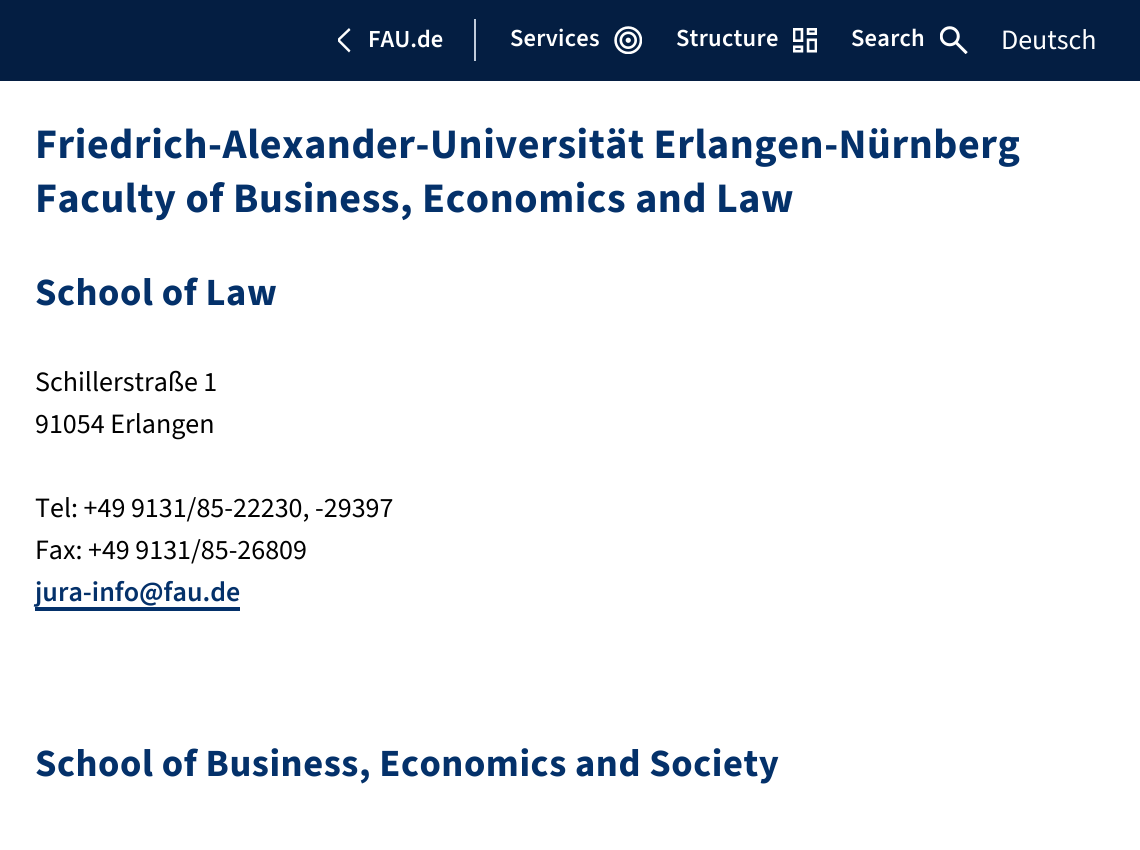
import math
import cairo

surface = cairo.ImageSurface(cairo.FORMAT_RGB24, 1140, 850)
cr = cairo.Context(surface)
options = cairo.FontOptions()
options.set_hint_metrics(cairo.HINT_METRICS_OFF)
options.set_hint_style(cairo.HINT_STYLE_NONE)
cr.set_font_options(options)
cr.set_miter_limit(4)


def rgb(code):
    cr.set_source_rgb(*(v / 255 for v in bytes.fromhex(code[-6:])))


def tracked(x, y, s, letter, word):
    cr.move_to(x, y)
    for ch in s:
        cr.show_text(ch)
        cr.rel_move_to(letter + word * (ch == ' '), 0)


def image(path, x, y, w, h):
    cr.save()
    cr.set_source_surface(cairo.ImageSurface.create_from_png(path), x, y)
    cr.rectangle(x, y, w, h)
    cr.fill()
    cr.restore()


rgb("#ffffff")
cr.paint()
rgb("#041e42")
cr.rectangle(0, 0, 1140, 81)
cr.fill()
cr.save()
cr.rectangle(338, 28, 14, 25)
cr.clip()
rgb("#ffffff")
cr.new_path()
cr.move_to(349, 52.5)
cr.line_to(350.5, 50.5)
cr.line_to(340, 40)
cr.line_to(350.5, 30)
cr.line_to(349, 28)
cr.line_to(336.5, 40)
cr.close_path()
cr.fill()
cr.restore()
rgb("#c0cbda")
cr.rectangle(474, 19, 2, 42)
cr.fill()
image("img/1.png", 614, 26, 28, 28)
image("img/2.png", 793, 28, 24, 25)
image("img/3.png", 940, 26, 28, 28)
rgb("#04316a")
cr.rectangle(35, 607, 205, 4)
cr.fill()
cr.select_font_face("Source Sans 3 SemiBold")
cr.set_font_size(24.5)
rgb("#ffffff")
cr.move_to(368, 47)
cr.show_text("FAU.de")
for x, y, s in [
    (510, 46, "Services"),
    (676, 46, "Structure"),
    (851, 46, "Search"),
]:
    tracked(x, y, s, 0.25, 0)
cr.select_font_face("Source Sans 3")
cr.set_font_size(28)
cr.move_to(1001, 49)
cr.show_text("Deutsch")
cr.select_font_face("Source Sans 3", cairo.FONT_SLANT_NORMAL, cairo.FONT_WEIGHT_BOLD)
cr.set_font_size(42)
rgb("#04316a")
tracked(35, 158, "Friedrich-Alexander-Universität Erlangen-Nürnberg", 0.55, 0)
tracked(35, 212, "Faculty of Business, Economics and Law", 0.55, 0)
cr.set_font_size(38.5)
tracked(35, 305, "School of Law", 0.55, 0)
cr.select_font_face("Source Sans 3")
cr.set_font_size(28)
rgb("#000000")
for x, y, s in [
    (35, 391, "Schillerstraße 1"),
    (35, 433, "91054 Erlangen"),
    (35, 517, "Tel: +49 9131/85-22230, -29397"),
    (35, 559, "Fax: +49 9131/85-26809"),
]:
    cr.move_to(x, y)
    cr.show_text(s)
cr.select_font_face("Source Sans 3 SemiBold")
rgb("#04316a")
cr.move_to(35, 601)
cr.show_text("jura-info@fau.de")
cr.select_font_face("Source Sans 3", cairo.FONT_SLANT_NORMAL, cairo.FONT_WEIGHT_BOLD)
cr.set_font_size(38.5)
tracked(35, 776, "School of Business, Economics and Society", 0.55, 0)
surface.write_to_png("page.png")
